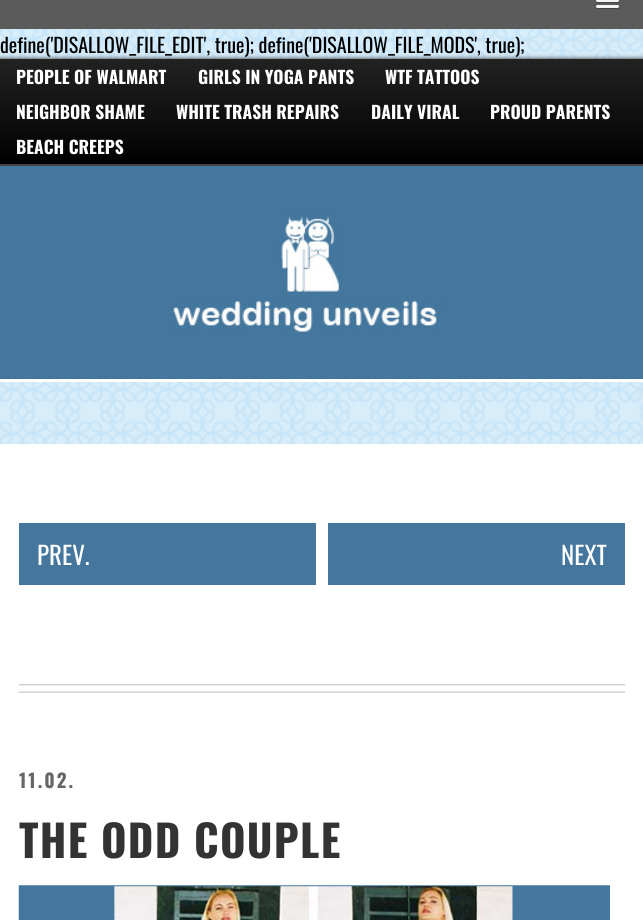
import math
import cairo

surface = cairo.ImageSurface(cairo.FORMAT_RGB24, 643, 920)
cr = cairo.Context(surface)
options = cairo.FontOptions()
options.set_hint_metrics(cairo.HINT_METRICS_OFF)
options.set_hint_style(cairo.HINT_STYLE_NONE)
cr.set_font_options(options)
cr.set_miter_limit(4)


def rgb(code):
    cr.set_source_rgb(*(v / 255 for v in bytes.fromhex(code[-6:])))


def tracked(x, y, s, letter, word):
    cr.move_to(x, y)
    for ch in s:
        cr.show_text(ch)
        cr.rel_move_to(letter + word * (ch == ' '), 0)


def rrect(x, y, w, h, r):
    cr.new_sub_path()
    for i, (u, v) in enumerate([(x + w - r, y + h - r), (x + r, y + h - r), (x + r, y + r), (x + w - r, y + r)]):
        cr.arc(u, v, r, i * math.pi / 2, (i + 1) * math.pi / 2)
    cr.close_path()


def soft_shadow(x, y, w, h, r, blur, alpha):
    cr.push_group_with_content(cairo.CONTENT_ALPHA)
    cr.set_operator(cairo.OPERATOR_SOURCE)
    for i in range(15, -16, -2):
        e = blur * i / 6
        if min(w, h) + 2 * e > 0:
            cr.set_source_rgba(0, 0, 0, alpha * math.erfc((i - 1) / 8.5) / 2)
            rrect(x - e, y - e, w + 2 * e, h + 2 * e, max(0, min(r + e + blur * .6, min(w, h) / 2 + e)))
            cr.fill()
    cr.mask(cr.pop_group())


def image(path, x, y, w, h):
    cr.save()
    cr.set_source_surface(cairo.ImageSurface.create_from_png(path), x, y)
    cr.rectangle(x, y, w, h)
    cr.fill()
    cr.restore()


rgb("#ffffff")
cr.paint()
image("img/1.png", 0, 29, 643, 415)
rgb("#5b5b5b")
cr.rectangle(0, 0, 643, 29)
cr.fill()
rgb("#444444")
cr.new_path()
cr.move_to(596.5, 0.5)
cr.line_to(596, 2)
cr.curve_to(596.5, 4, 600, 3, 601, 3)
cr.line_to(614, 3)
cr.curve_to(615, 3, 618.5, 4, 619, 2)
cr.line_to(618.5, 0.5)
cr.curve_to(618.5, 1, 618, 1, 617.5, 1)
cr.line_to(597.5, 1)
cr.curve_to(597, 1, 596.5, 1, 596.5, 0.5)
cr.close_path()
cr.fill()
rgb("#f5f5f5")
rrect(596, -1, 23, 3, 1.5)
cr.fill()
rgb("#444444")
cr.new_path()
cr.move_to(596.5, 6.5)
cr.curve_to(594, 9.5, 600.5, 9, 601, 9)
cr.line_to(614, 9)
cr.curve_to(614.5, 9, 621, 9.5, 618.5, 6.5)
cr.curve_to(618.5, 7, 618, 7.5, 617.5, 7.5)
cr.line_to(597.5, 7.5)
cr.curve_to(597, 7.5, 596.5, 7, 596.5, 6.5)
cr.close_path()
cr.fill()
rgb("#f5f5f5")
rrect(596, 5, 23, 3, 1.5)
cr.fill()
rgb("#222222")
soft_shadow(0, 59, 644, 107, 0, 2.5, 1)
gradient = cairo.LinearGradient(322, 59, 322, 165)
gradient.add_color_stop_rgba(0, 0.133, 0.133, 0.133, 1)
gradient.add_color_stop_rgba(1, 0, 0, 0, 1)
cr.set_source(gradient)
cr.rectangle(0, 59, 643, 105)
cr.fill()
for x, y, w, h, color in [
    (0, 164, 643, 2, "#444444"),
    (0, 166, 643, 213, "#45769e"),
    (0, 379, 643, 3, "#ffffff"),
]:
    rgb(color)
    cr.rectangle(x, y, w, h)
    cr.fill()
image("img/2.png", 172, 210, 270, 125)
rgb("#45769e")
cr.rectangle(19, 523, 297, 62)
cr.fill()
cr.rectangle(328, 523, 297, 62)
cr.fill()
image("img/3.png", 18, 684, 607, 9)
image("img/4.png", 18, 885, 592, 35)
cr.select_font_face("Oswald")
cr.set_font_size(20)
rgb("#000000")
cr.move_to(0, 53)
cr.show_text("define('DISALLOW_FILE_EDIT', true); define('DISALLOW_FILE_MODS', true);")
cr.select_font_face("Oswald", cairo.FONT_SLANT_NORMAL, cairo.FONT_WEIGHT_BOLD)
cr.set_font_size(17.5)
rgb("#ffffff")
for x, y, s in [
    (16, 84, "PEOPLE OF WALMART"),
    (198, 84, "GIRLS IN YOGA PANTS"),
    (385, 84, "WTF TATTOOS"),
    (16, 119, "NEIGHBOR SHAME"),
    (176, 119, "WHITE TRASH REPAIRS"),
    (371, 119, "DAILY VIRAL"),
    (490, 119, "PROUD PARENTS"),
    (16, 154, "BEACH CREEPS"),
]:
    cr.move_to(x, y)
    cr.show_text(s)
cr.select_font_face("Oswald")
cr.set_font_size(25)
cr.move_to(37, 565)
cr.show_text("PREV.")
cr.move_to(561, 565)
cr.show_text("NEXT")
cr.select_font_face("Oswald", cairo.FONT_SLANT_NORMAL, cairo.FONT_WEIGHT_BOLD)
cr.set_font_size(19)
rgb("#666666")
tracked(19, 788, "11.02.", 2, 0)
cr.set_font_size(43.75)
rgb("#333333")
tracked(19, 858, "THE ODD COUPLE", 1.25, 0)
surface.write_to_png("page.png")
